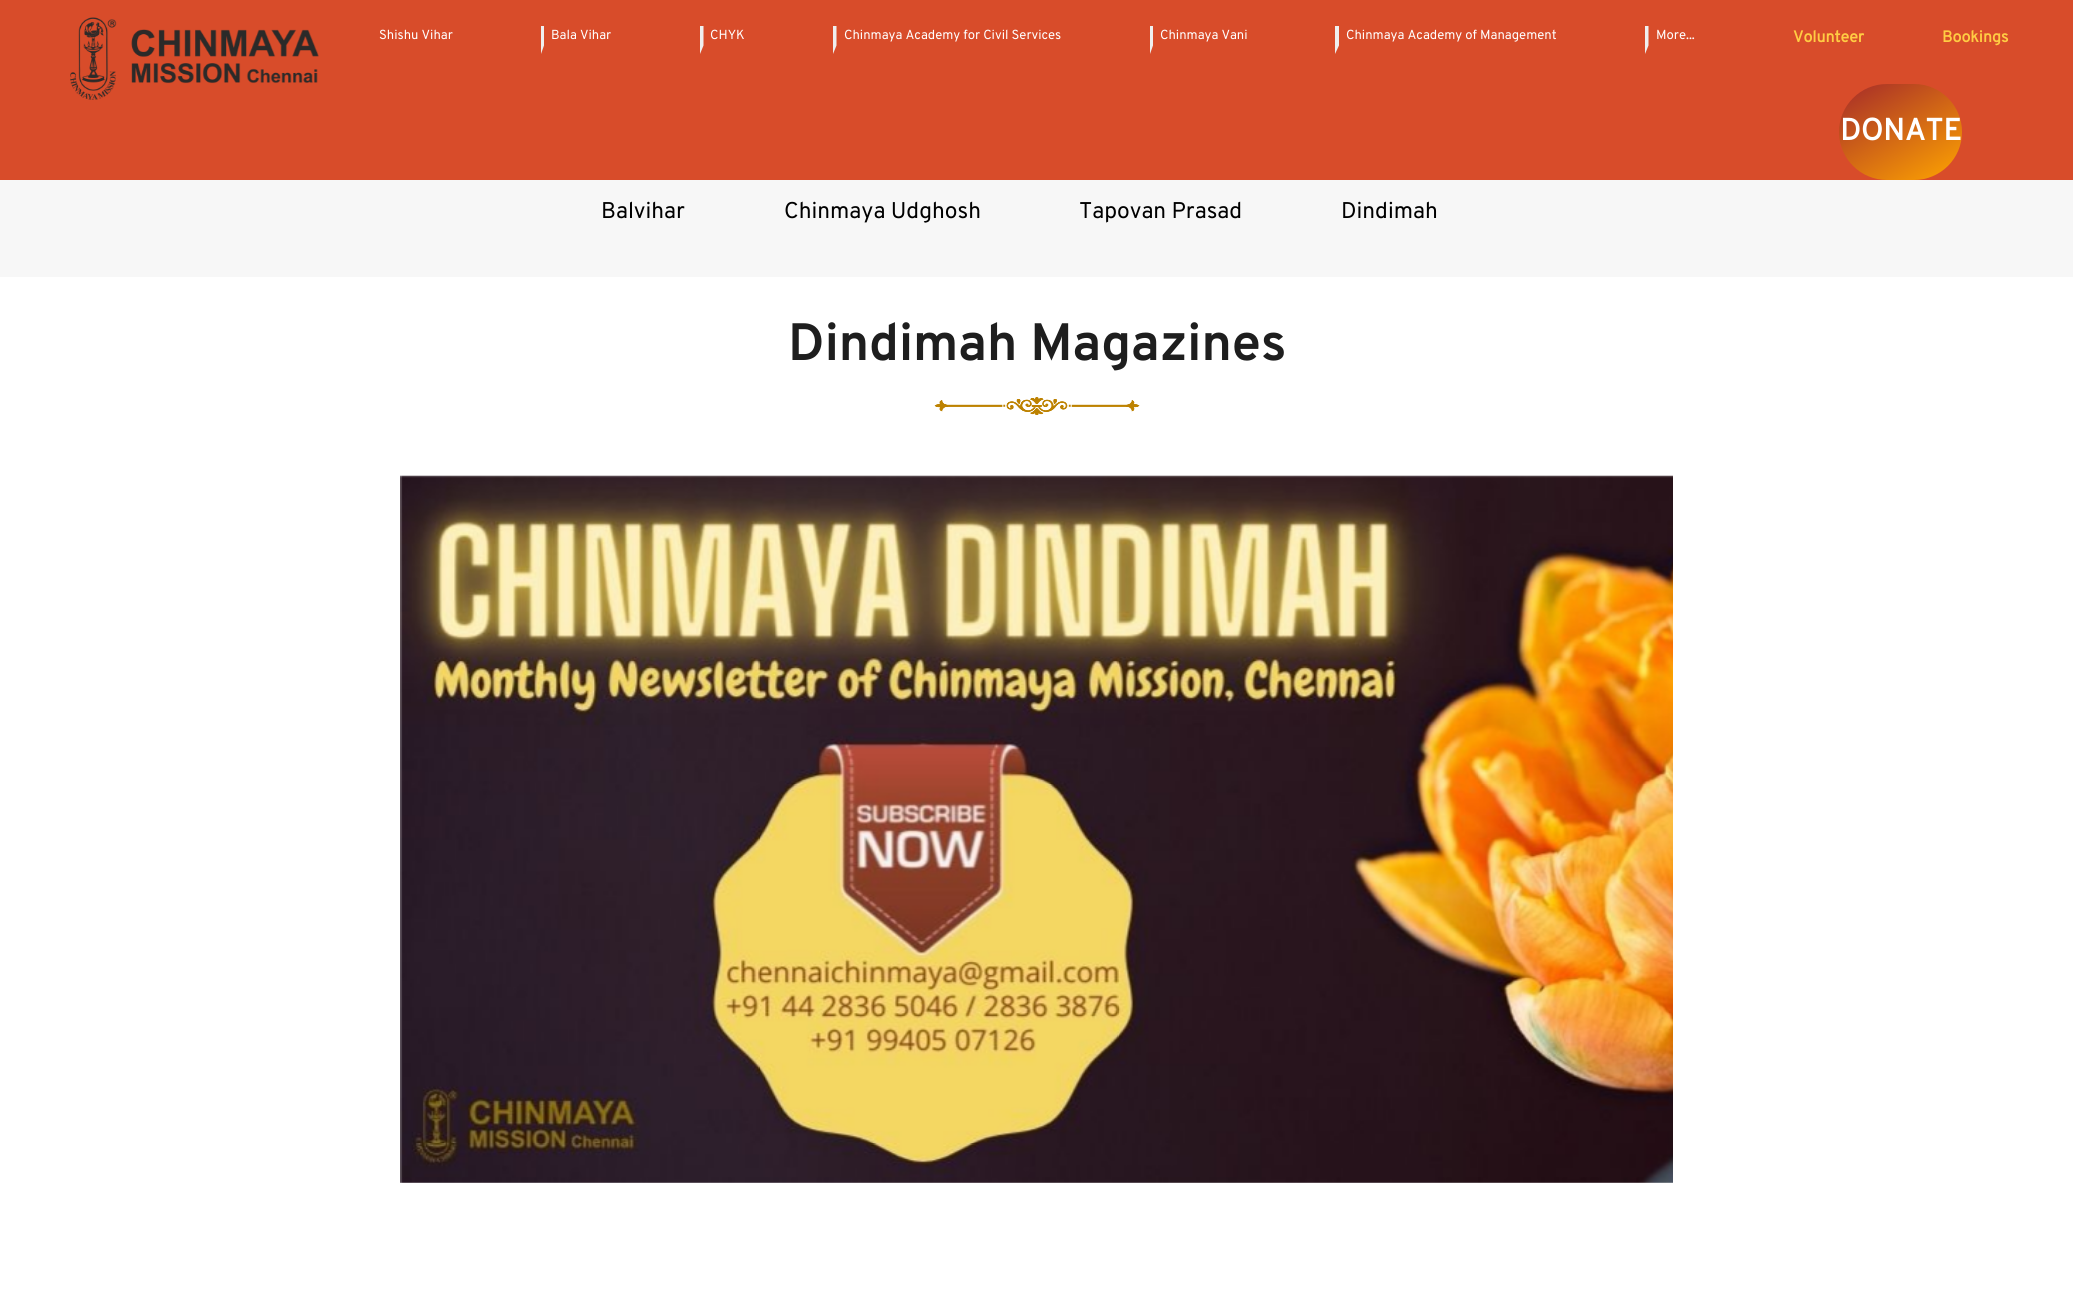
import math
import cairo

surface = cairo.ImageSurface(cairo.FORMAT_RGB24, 2073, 1308)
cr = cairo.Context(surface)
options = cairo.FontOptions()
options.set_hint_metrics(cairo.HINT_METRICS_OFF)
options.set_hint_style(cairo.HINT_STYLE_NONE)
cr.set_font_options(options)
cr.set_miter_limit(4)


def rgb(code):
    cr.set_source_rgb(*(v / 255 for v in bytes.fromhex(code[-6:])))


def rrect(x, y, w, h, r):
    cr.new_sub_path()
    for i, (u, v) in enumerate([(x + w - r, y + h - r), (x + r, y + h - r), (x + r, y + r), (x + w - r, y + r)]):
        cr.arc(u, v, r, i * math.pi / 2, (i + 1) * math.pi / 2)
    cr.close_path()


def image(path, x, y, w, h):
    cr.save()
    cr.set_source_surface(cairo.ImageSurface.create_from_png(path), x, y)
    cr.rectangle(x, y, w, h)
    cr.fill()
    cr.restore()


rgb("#ffffff")
cr.paint()
rgb("#f7f7f7")
cr.rectangle(0, 180, 2073, 97)
cr.fill()
rgb("#d84c2a")
cr.rectangle(0, 0, 2073, 180)
cr.fill()
image("img/1.png", 70, 17, 249, 83)
rgb("#efefef")
cr.new_path()
cr.move_to(541, 54)
cr.line_to(541, 26)
cr.line_to(544, 26)
cr.line_to(544, 45.5)
cr.close_path()
cr.fill()
cr.new_path()
cr.move_to(700, 54)
cr.line_to(700, 26)
cr.line_to(703.5, 26)
cr.line_to(703.5, 45.5)
cr.close_path()
cr.fill()
cr.new_path()
cr.move_to(833, 54)
cr.line_to(833, 26)
cr.line_to(836.5, 26)
cr.line_to(836.5, 45.5)
cr.close_path()
cr.fill()
cr.new_path()
cr.move_to(1150, 54)
cr.line_to(1150, 26)
cr.line_to(1153, 26)
cr.line_to(1153, 45.5)
cr.close_path()
cr.fill()
cr.new_path()
cr.move_to(1335, 54)
cr.line_to(1335, 26)
cr.line_to(1339, 26)
cr.line_to(1339, 45.5)
cr.close_path()
cr.fill()
cr.new_path()
cr.move_to(1645, 54)
cr.line_to(1645, 26)
cr.line_to(1648.5, 26)
cr.line_to(1648.5, 45.5)
cr.close_path()
cr.fill()
gradient = cairo.LinearGradient(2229, 527, 1940, 26)
gradient.add_color_stop_rgba(0, 0.647, 0.165, 0.165, 1)
gradient.add_color_stop_rgba(0.25, 1, 0.647, 0, 1)
gradient.add_color_stop_rgba(0.5, 1, 1, 0, 1)
gradient.add_color_stop_rgba(0.75, 1, 0.647, 0, 1)
gradient.add_color_stop_rgba(1, 0.647, 0.165, 0.165, 1)
cr.set_source(gradient)
rrect(1839, 84, 123, 96, 48)
cr.fill()
image("img/2.png", 934, 397, 206, 18)
image("img/3.png", 400, 475, 1273, 708)
cr.select_font_face("Overpass")
cr.set_font_size(13.1)
rgb("#ffffff")
for x, y, s in [
    (379, 39, "Shishu Vihar"),
    (551, 39, "Bala Vihar"),
    (710, 39, "CHYK"),
    (844, 39, "Chinmaya Academy for Civil Services"),
    (1160, 39, "Chinmaya Vani"),
    (1346, 39, "Chinmaya Academy of Management"),
    (1656, 39, "More..."),
]:
    cr.move_to(x, y)
    cr.show_text(s)
cr.select_font_face("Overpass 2", cairo.FONT_SLANT_NORMAL, cairo.FONT_WEIGHT_BOLD)
cr.set_font_size(16)
rgb("#ffcc43")
cr.move_to(1793, 42)
cr.show_text("Volunteer")
cr.move_to(1942, 42)
cr.show_text("Bookings")
cr.set_font_size(30.5)
rgb("#ffffff")
cr.move_to(1840, 140)
cr.show_text("DONATE")
cr.select_font_face("Overpass")
cr.set_font_size(22.75)
rgb("#000000")
for x, y, s in [
    (601, 218, "Balvihar"),
    (784, 218, "Chinmaya Udghosh"),
    (1079, 218, "Tapovan Prasad"),
    (1341, 218, "Dindimah"),
]:
    cr.move_to(x, y)
    cr.show_text(s)
cr.select_font_face("Overpass", cairo.FONT_SLANT_NORMAL, cairo.FONT_WEIGHT_BOLD)
cr.set_font_size(52.5)
rgb("#1e1e1e")
cr.move_to(788, 360)
cr.show_text("Dindimah Magazines")
surface.write_to_png("page.png")
